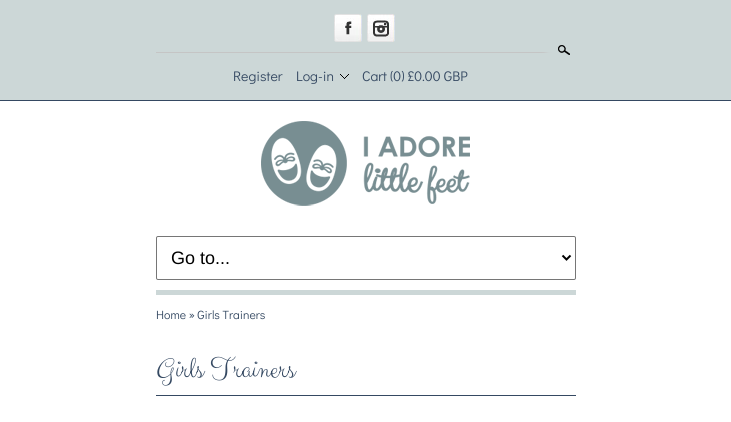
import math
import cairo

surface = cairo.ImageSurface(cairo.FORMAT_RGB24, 731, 422)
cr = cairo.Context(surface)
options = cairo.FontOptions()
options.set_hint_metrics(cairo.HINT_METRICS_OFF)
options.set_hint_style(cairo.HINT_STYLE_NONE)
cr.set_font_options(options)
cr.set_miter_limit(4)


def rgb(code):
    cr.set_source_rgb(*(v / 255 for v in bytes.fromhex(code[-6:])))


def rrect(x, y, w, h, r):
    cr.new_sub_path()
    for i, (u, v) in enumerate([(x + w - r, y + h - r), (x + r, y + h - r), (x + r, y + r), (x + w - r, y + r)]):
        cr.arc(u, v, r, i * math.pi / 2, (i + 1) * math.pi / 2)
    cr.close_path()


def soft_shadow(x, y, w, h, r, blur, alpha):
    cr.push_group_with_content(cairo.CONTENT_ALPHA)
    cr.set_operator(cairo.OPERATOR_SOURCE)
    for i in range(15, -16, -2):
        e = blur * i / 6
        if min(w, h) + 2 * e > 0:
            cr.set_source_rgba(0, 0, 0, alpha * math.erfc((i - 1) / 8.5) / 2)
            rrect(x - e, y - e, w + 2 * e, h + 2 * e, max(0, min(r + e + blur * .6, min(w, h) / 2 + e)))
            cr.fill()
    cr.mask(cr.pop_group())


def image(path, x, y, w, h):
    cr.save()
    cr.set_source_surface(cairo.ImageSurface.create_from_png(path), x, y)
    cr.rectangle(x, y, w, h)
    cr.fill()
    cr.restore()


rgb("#ccd7d7")
cr.paint()
rgb("#c5c5c5")
cr.rectangle(156, 52, 396, 1)
cr.fill()
image("img/1.png", 334, 14, 28, 28)
image("img/2.png", 367, 14, 28, 28)
image("img/3.png", 340, 74, 9, 5)
rgb("#ccd7d7")
soft_shadow(546, 9, 26, 82, 0, 2.5, 1)
image("img/4.png", 558, 45, 12, 10)
rgb("#ffffff")
cr.rectangle(0, 101, 731, 321)
cr.fill()
rgb("#354962")
cr.rectangle(0, 100, 731, 1)
cr.fill()
image("img/5.png", 261, 121, 209, 85)
rgb("#ccd7d7")
cr.rectangle(156, 290, 420, 5)
cr.fill()
rrect(156.5, 236.5, 419, 43, 1.5)
rgb("#767676")
cr.set_line_width(1)
cr.stroke()
cr.new_path()
cr.move_to(562.5, 255.5)
cr.line_to(566.5, 259.5)
cr.line_to(570.5, 255.5)
rgb("#000000")
cr.set_line_width(2)
cr.stroke()
rgb("#354962")
cr.rectangle(156, 395, 420, 1)
cr.fill()
cr.select_font_face("Didact Gothic")
cr.set_font_size(14)
for x, y, s in [
    (233, 81, "Register"),
    (296, 81, "Log-in"),
    (362, 81, "Cart (0) £0.00 GBP"),
]:
    cr.move_to(x, y)
    cr.show_text(s)
cr.select_font_face("Liberation Sans")
cr.set_font_size(18)
rgb("#000000")
cr.move_to(171, 264)
cr.show_text("Go to...")
cr.select_font_face("Didact Gothic")
cr.set_font_size(12)
rgb("#354962")
cr.move_to(156, 319)
cr.show_text("Home » Girls Trainers")
cr.select_font_face("Clicker Script")
cr.set_font_size(30)
cr.move_to(156, 378)
cr.show_text("Girls Trainers")
surface.write_to_png("page.png")
